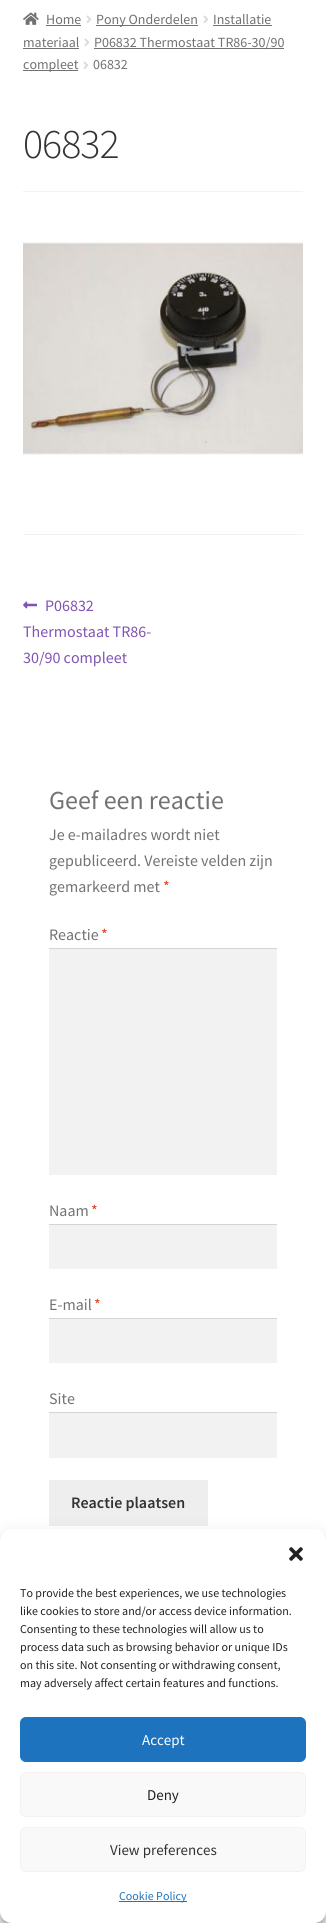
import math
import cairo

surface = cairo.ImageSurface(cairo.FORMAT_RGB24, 326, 1923)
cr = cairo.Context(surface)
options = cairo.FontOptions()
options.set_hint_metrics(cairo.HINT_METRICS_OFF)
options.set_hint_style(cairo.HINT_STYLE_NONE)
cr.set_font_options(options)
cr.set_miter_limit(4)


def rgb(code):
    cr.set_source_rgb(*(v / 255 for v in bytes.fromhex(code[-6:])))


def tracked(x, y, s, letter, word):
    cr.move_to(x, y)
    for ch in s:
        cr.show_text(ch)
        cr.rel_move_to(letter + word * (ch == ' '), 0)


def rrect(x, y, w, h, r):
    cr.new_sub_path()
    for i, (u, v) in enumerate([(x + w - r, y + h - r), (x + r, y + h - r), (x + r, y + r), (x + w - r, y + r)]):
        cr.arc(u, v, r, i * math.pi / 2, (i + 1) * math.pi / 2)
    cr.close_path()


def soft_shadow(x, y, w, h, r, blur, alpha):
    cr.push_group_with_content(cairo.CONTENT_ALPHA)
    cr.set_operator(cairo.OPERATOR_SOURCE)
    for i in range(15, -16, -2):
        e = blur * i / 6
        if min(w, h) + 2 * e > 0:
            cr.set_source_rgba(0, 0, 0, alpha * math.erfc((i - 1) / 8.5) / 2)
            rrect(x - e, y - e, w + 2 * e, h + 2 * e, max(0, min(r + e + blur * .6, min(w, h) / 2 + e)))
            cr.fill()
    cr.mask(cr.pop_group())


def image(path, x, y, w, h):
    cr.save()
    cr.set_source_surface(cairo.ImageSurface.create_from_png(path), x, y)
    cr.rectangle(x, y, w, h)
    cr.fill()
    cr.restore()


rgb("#ffffff")
cr.paint()
image("img/1.png", 23, 12, 16, 13)
rgb("#727272")
cr.rectangle(46, 25, 35, 1)
cr.fill()
image("img/2.png", 86, 15, 6, 8)
cr.rectangle(96, 25, 102, 1)
cr.fill()
image("img/2.png", 203, 15, 6, 8)
cr.rectangle(213, 25, 59, 1)
cr.fill()
cr.rectangle(23, 48, 56, 1)
cr.fill()
image("img/2.png", 84, 38, 6, 8)
cr.rectangle(94, 48, 190, 1)
cr.fill()
cr.rectangle(23, 70, 55, 1)
cr.fill()
image("img/2.png", 83, 61, 6, 8)
rgb("#f2f2f2")
cr.rectangle(23, 191, 280, 1)
cr.fill()
image("img/3.png", 23, 242, 280, 213)
cr.rectangle(23, 534, 280, 1)
cr.fill()
image("img/4.png", 23, 601, 15, 8)
for x, y, w, h, color in [
    (49, 949, 228, 226, "#f2f2f2"),
    (49, 948, 228, 1, "#d4d4d4"),
    (49, 1225, 228, 44, "#f2f2f2"),
    (49, 1224, 228, 1, "#d4d4d4"),
    (49, 1319, 228, 44, "#f2f2f2"),
    (49, 1318, 228, 1, "#d4d4d4"),
    (49, 1413, 228, 45, "#f2f2f2"),
    (49, 1412, 228, 1, "#d4d4d4"),
    (49, 1480, 159, 46, "#eeeeee"),
]:
    rgb(color)
    cr.rectangle(x, y, w, h)
    cr.fill()
rgb("#000000")
soft_shadow(0, 1535, 326, 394, 12, 3, 0.23)
soft_shadow(0, 1539, 326, 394, 12, 10, 0.19)
rgb("#ffffff")
rrect(0, 1529, 326, 394, 12)
cr.fill()
image("img/5.png", 289, 1547, 14, 14)
rgb("#1e73be")
rrect(20.5, 1717.5, 285, 44, 5.5)
cr.fill_preserve()
cr.set_line_width(1)
cr.stroke()
rgb("#f9f9f9")
rrect(20.5, 1772.5, 285, 44, 5.5)
cr.fill_preserve()
rgb("#f2f2f2")
cr.stroke()
rgb("#f9f9f9")
rrect(20.5, 1827.5, 285, 44, 5.5)
cr.fill_preserve()
rgb("#f2f2f2")
cr.stroke()
rgb("#1e73be")
cr.rectangle(119, 1901, 68, 1)
cr.fill()
cr.select_font_face("Source Sans Pro")
cr.set_font_size(14)
rgb("#727272")
for x, y, s in [
    (46, 24, "Home"),
    (96, 24, "Pony Onderdelen"),
    (213, 24, "Installatie"),
    (23, 47, "materiaal"),
    (94, 47, "P06832 Thermostaat TR86-30/90"),
    (23, 69, "compleet"),
    (93, 69, "06832"),
]:
    cr.move_to(x, y)
    cr.show_text(s)
cr.select_font_face("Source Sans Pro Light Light")
cr.set_font_size(42)
rgb("#333333")
tracked(23, 158, "06832", -1, 0)
cr.select_font_face("Source Sans Pro")
cr.set_font_size(16)
rgb("#7f54b3")
for x, y, s in [
    (45, 611, "P06832"),
    (23, 637, "Thermostaat TR86-"),
    (23, 663, "30/90 compleet"),
]:
    cr.move_to(x, y)
    cr.show_text(s)
cr.set_font_size(26)
rgb("#727272")
cr.move_to(49, 809)
cr.show_text("Geef een reactie")
cr.set_font_size(16)
for x, y, s in [
    (49, 840, "Je e-mailadres wordt niet"),
    (49, 866, "gepubliceerd. Vereiste velden zijn"),
    (49, 892, "gemarkeerd met"),
]:
    cr.move_to(x, y)
    cr.show_text(s)
rgb("#e2401c")
cr.move_to(163, 892)
cr.show_text("*")
rgb("#727272")
cr.move_to(49, 940)
cr.show_text("Reactie")
rgb("#e2401c")
cr.move_to(101, 940)
cr.show_text("*")
rgb("#727272")
cr.move_to(49, 1216)
cr.show_text("Naam")
rgb("#e2401c")
cr.move_to(91, 1216)
cr.show_text("*")
rgb("#727272")
cr.move_to(49, 1310)
cr.show_text("E-mail")
rgb("#e2401c")
cr.move_to(94, 1310)
cr.show_text("*")
rgb("#727272")
cr.move_to(49, 1404)
cr.show_text("Site")
cr.select_font_face("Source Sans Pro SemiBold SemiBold")
rgb("#333333")
cr.move_to(71, 1508)
cr.show_text("Reactie plaatsen")
cr.select_font_face("Source Sans Pro")
cr.set_font_size(12)
rgb("#222222")
for x, y, s in [
    (20, 1597, "To provide the best experiences, we use technologies"),
    (20, 1615, "like cookies to store and/or access device information."),
    (20, 1633, "Consenting to these technologies will allow us to"),
    (20, 1651, "process data such as browsing behavior or unique IDs"),
    (20, 1669, "on this site. Not consenting or withdrawing consent,"),
    (20, 1687, "may adversely affect certain features and functions."),
]:
    cr.move_to(x, y)
    cr.show_text(s)
cr.set_font_size(15)
rgb("#ffffff")
cr.move_to(142, 1745)
cr.show_text("Accept")
rgb("#222222")
cr.move_to(147, 1800)
cr.show_text("Deny")
rgb("#333333")
cr.move_to(110, 1855)
cr.show_text("View preferences")
cr.set_font_size(12)
rgb("#1e73be")
cr.move_to(119, 1900)
cr.show_text("Cookie Policy")
surface.write_to_png("page.png")
